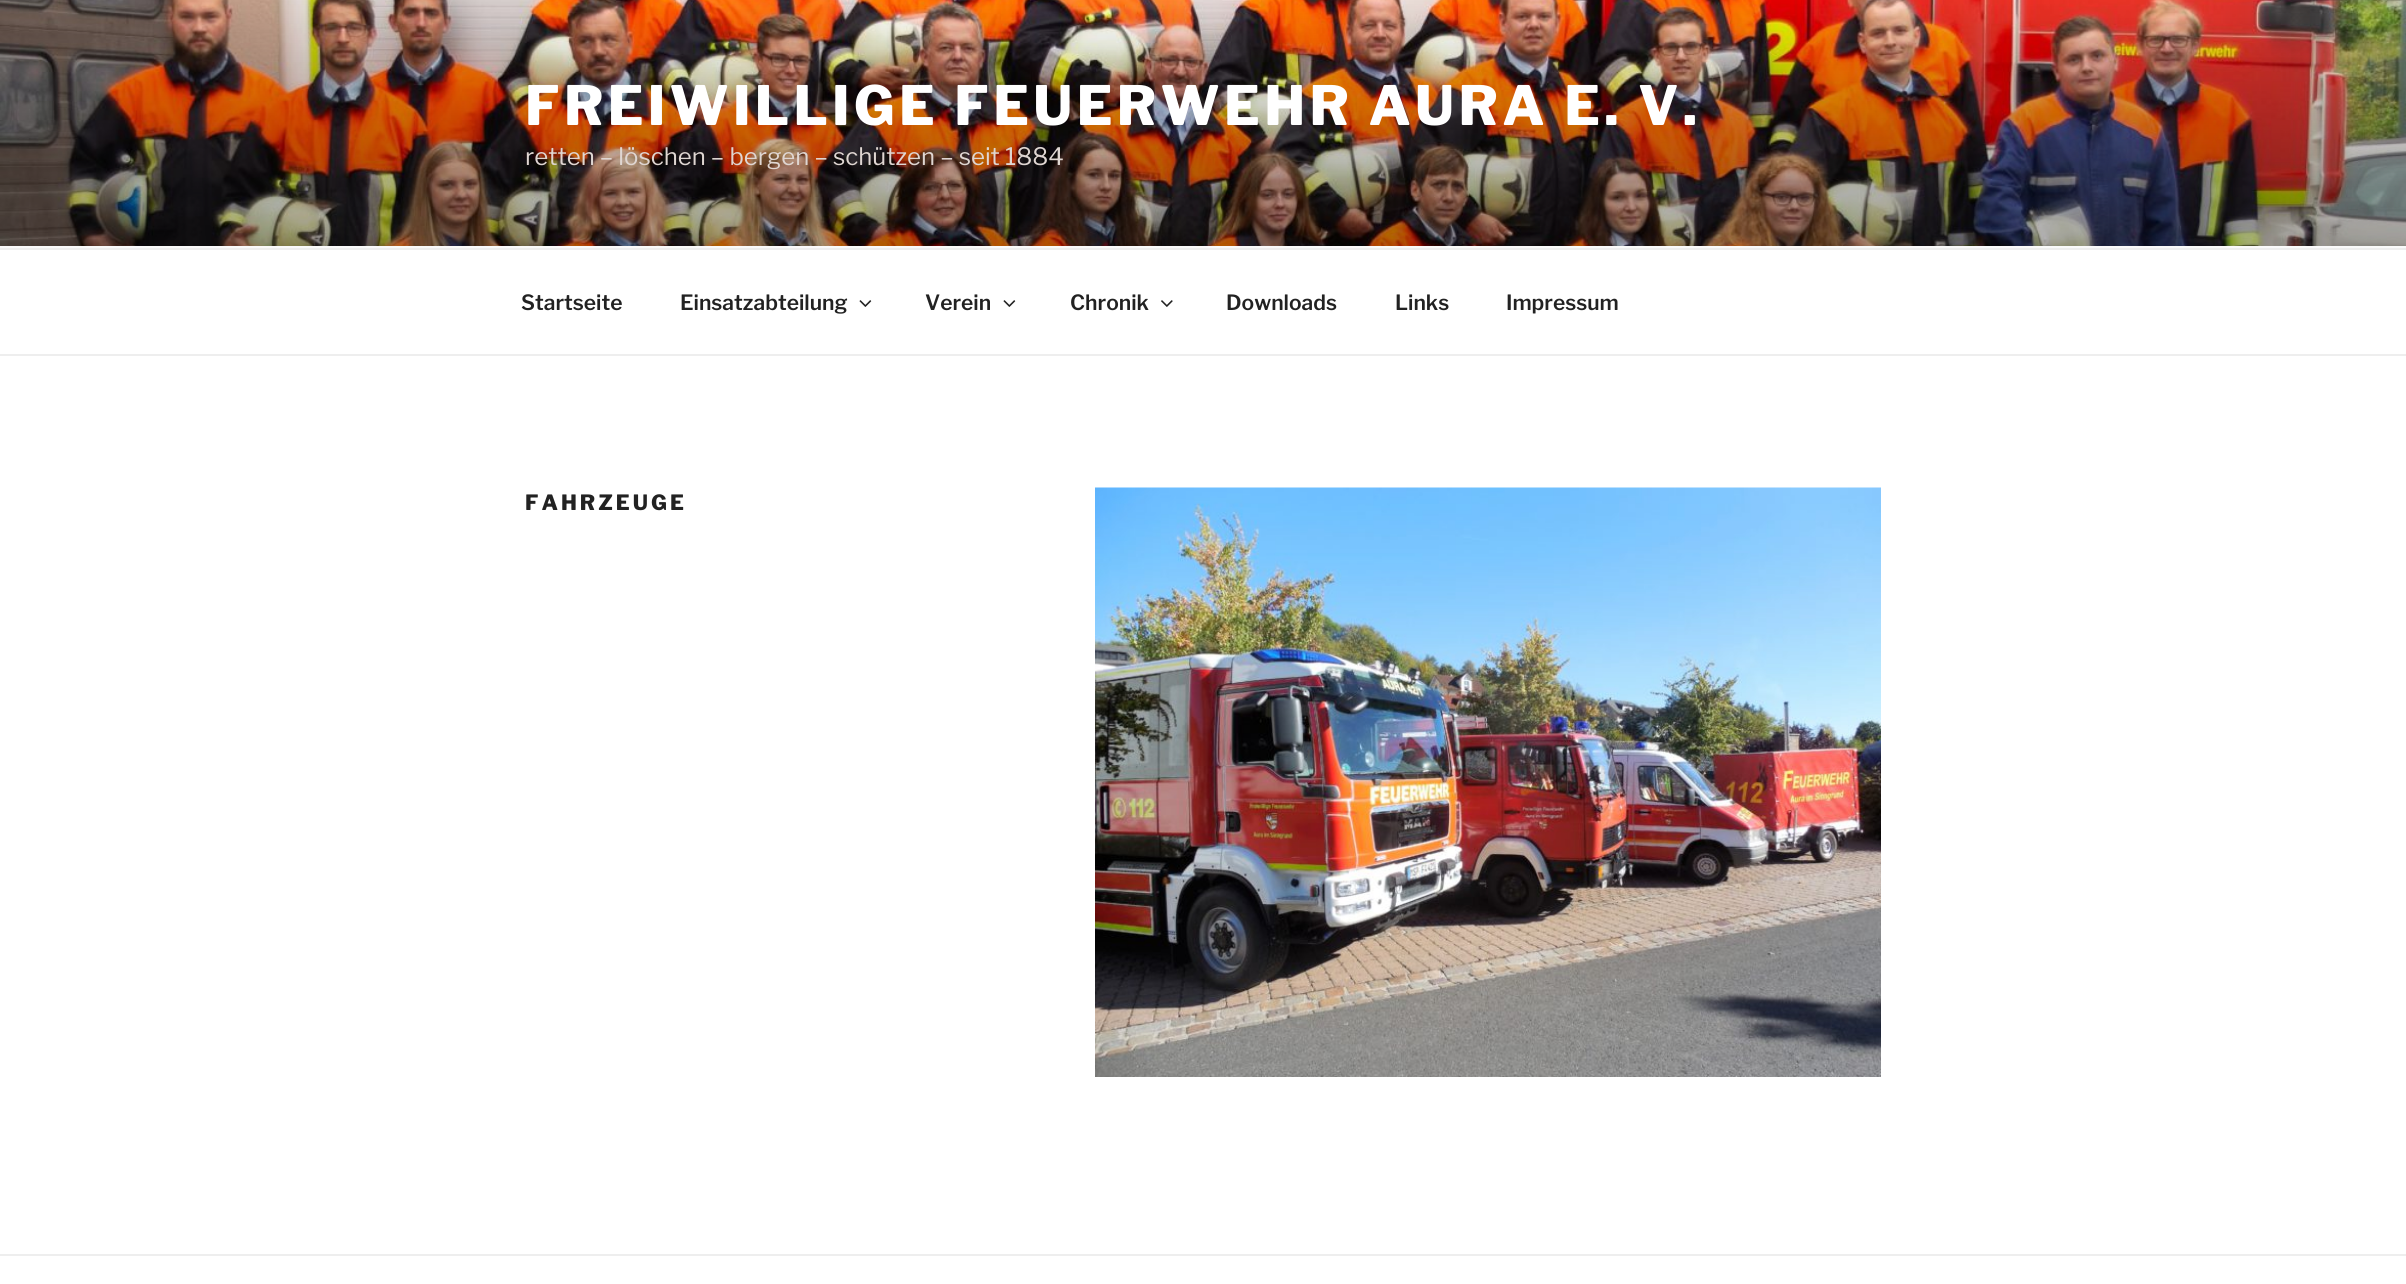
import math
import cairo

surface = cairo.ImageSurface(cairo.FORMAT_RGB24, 2406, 1284)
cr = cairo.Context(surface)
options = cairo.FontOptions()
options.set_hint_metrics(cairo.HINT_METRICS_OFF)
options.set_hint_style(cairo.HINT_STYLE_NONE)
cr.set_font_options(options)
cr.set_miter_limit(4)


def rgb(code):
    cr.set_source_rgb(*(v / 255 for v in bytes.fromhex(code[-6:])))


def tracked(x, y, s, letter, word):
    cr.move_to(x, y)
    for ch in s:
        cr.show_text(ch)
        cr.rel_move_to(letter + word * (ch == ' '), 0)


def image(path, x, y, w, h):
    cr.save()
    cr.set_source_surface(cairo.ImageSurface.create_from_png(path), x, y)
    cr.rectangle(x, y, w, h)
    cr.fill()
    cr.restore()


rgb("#ffffff")
cr.paint()
rgb("#fafafa")
cr.rectangle(0, 246, 2406, 2)
cr.fill()
image("img/1.png", 0, 0, 2406, 246)
rgb("#eeeeee")
cr.rectangle(0, 248, 2406, 2)
cr.fill()
cr.rectangle(0, 354, 2406, 2)
cr.fill()
image("img/2.png", 859, 300, 13, 7)
image("img/2.png", 1003, 300, 13, 7)
image("img/3.png", 1161, 300, 12, 7)
image("img/4.png", 1095, 487, 786, 590)
cr.rectangle(0, 1254, 2406, 2)
cr.fill()
cr.select_font_face("Libre Franklin Thin")
cr.set_font_size(54)
rgb("#ffffff")
tracked(525, 125, "FREIWILLIGE FEUERWEHR AURA E. V.", 4.3, 0)
cr.select_font_face("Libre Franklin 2 Thin")
cr.set_font_size(24)
rgb("#dfd6d2")
cr.move_to(525, 165)
cr.show_text("retten – löschen – bergen – schützen – seit 1884")
cr.select_font_face("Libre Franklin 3 Thin")
cr.set_font_size(21)
rgb("#222222")
for x, y, s in [
    (521, 310, "Startseite"),
    (680, 310, "Einsatzabteilung"),
    (925, 310, "Verein"),
    (1070, 310, "Chronik"),
    (1226, 310, "Downloads"),
    (1395, 310, "Links"),
    (1506, 310, "Impressum"),
]:
    cr.move_to(x, y)
    cr.show_text(s)
cr.select_font_face("Libre Franklin Thin")
tracked(525, 510, "FAHRZEUGE", 3, 0)
surface.write_to_png("page.png")
